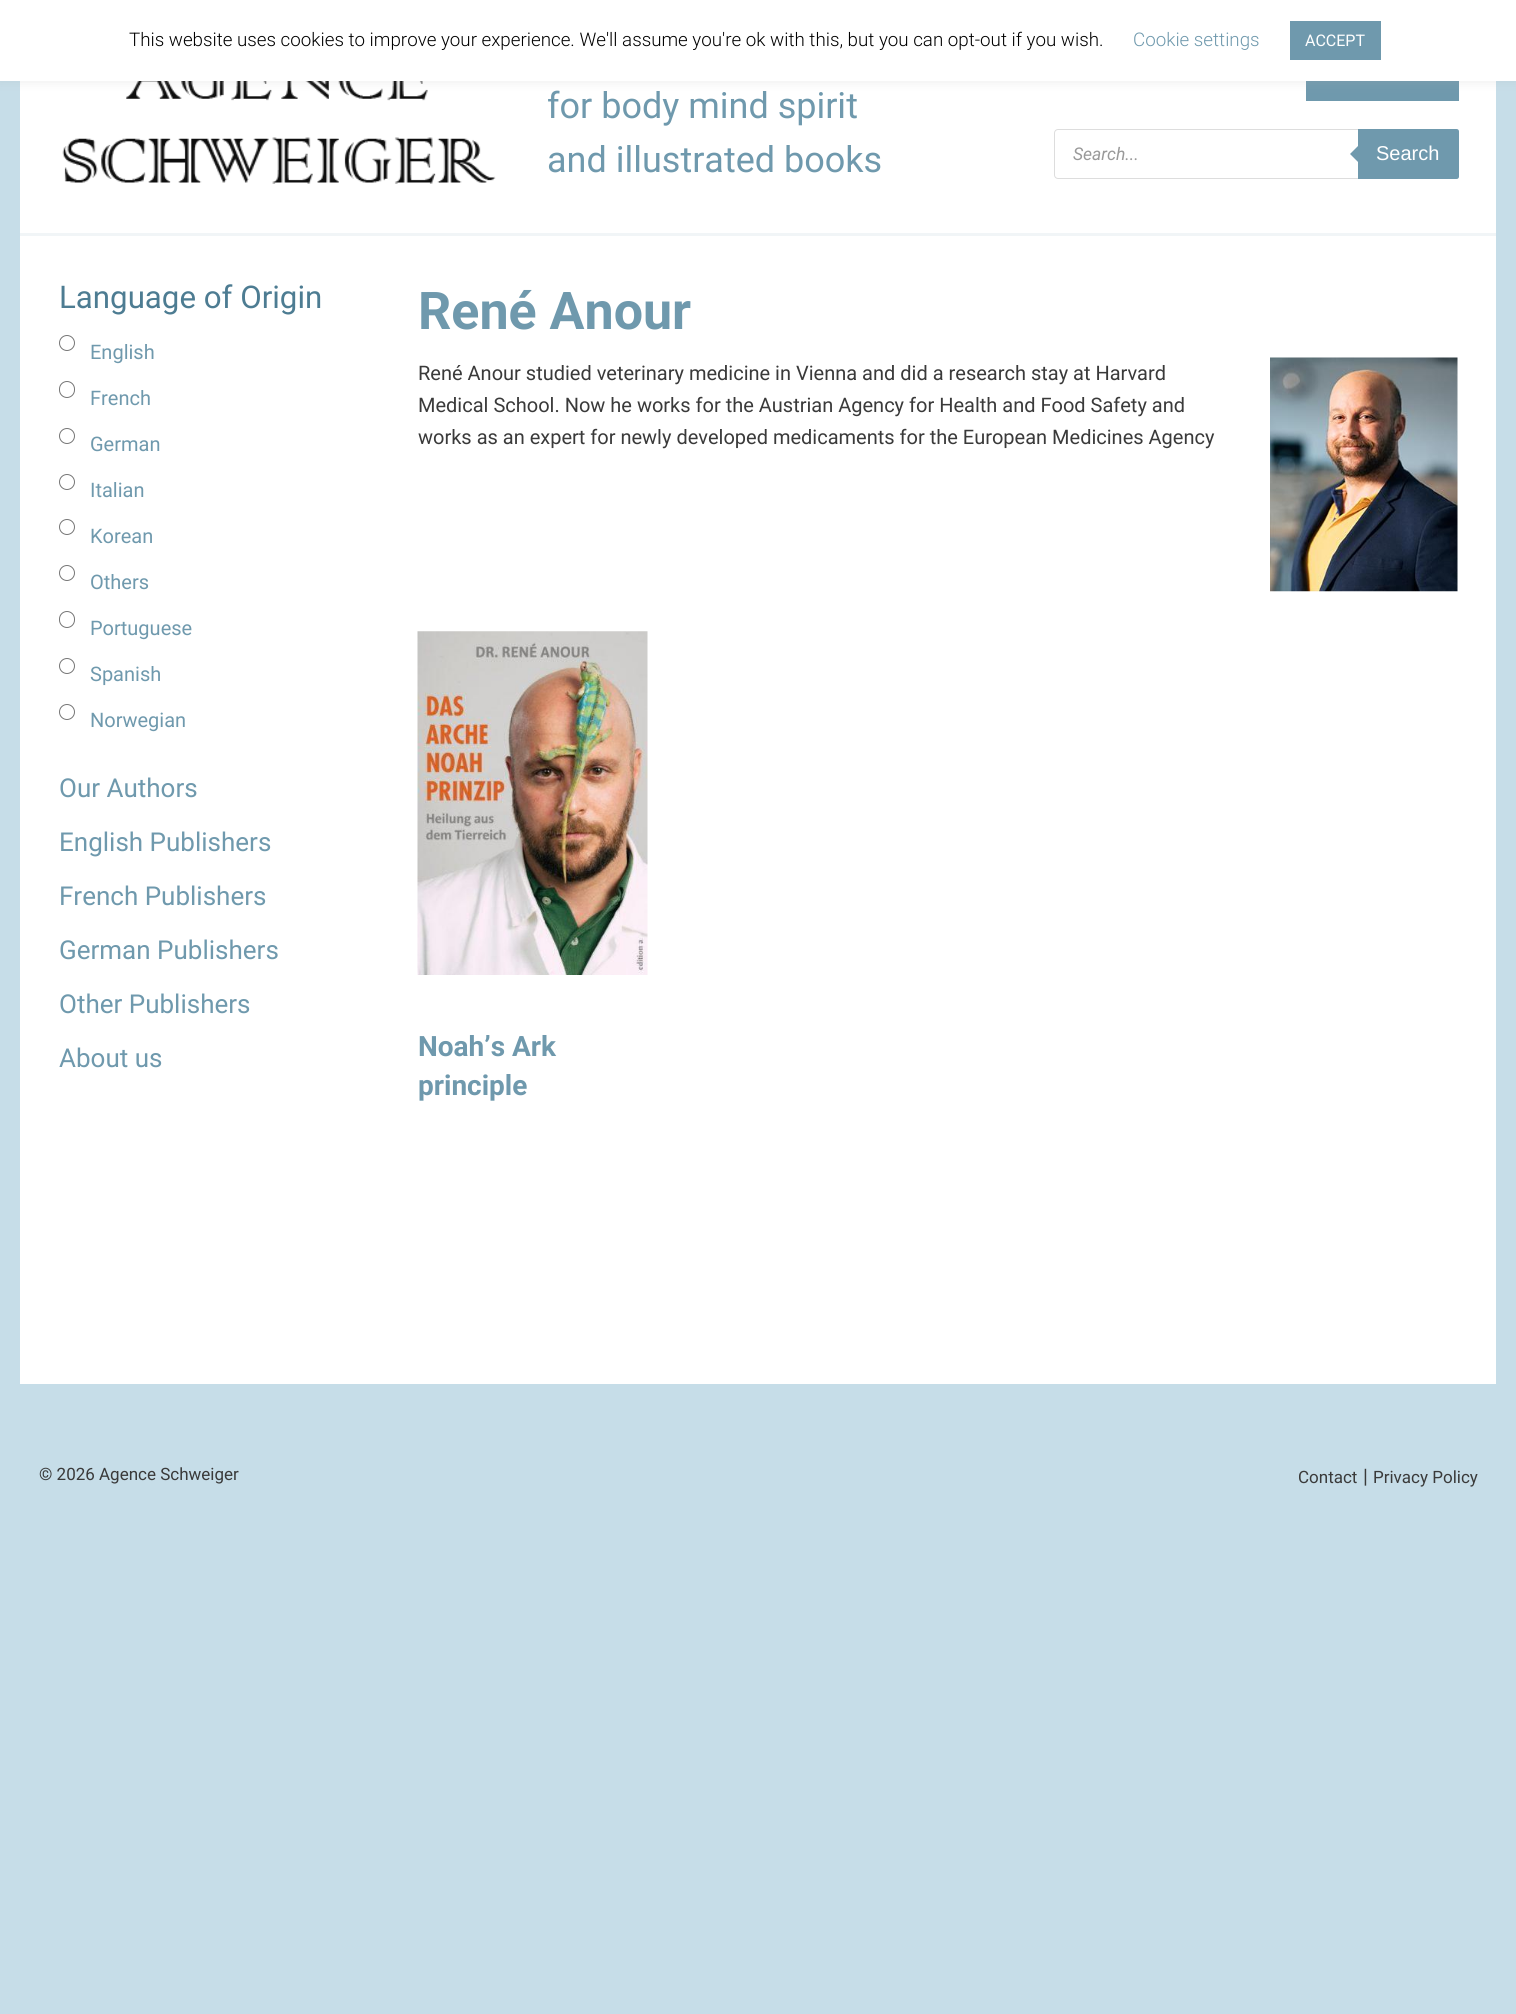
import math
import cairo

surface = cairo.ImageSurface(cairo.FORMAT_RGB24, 1516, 2014)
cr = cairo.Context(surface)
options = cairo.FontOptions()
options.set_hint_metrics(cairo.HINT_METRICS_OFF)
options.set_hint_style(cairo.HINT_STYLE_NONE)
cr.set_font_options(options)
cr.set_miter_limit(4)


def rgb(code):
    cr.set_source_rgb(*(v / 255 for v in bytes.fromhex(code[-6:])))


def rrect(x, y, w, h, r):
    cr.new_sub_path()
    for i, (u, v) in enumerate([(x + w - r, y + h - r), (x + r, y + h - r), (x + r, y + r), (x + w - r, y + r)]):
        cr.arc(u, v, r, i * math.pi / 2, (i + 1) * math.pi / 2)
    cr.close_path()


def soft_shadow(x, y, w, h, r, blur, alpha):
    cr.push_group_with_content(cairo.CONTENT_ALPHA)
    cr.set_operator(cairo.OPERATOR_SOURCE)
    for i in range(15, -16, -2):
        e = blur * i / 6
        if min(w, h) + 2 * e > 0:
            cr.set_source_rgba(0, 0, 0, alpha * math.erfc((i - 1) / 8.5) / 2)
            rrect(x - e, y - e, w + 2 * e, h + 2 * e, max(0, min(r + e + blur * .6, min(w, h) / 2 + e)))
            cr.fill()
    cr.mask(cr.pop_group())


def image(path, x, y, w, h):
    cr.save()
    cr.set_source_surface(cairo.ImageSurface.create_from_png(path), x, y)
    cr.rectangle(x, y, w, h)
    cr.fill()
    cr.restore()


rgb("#c6dde8")
cr.paint()
rgb("#ffffff")
cr.rectangle(20, 81, 1476, 152)
cr.fill()
image("img/1.png", 62, 81, 434, 103)
rgb("#6f99ad")
cr.rectangle(1306, 81, 153, 20)
cr.fill()
rgb("#acabab")
soft_shadow(0, -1, 1516, 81, 0, 6, 0.3)
for x, y, w, h, color in [
    (0, 0, 1516, 81, "#ffffff"),
    (1290, 21, 91, 39, "#6f99ad"),
    (20, 233, 1476, 3, "#f1f5f7"),
]:
    rgb(color)
    cr.rectangle(x, y, w, h)
    cr.fill()
rrect(1054.5, 129.5, 404, 49, 3.5)
rgb("#dddddd")
cr.set_line_width(1)
cr.stroke()
rgb("#6f99ad")
cr.new_path()
cr.move_to(1358, 129)
cr.line_to(1456.5, 129)
cr.curve_to(1458, 129, 1459, 130, 1459, 131.5)
cr.line_to(1459, 176.5)
cr.curve_to(1459, 178, 1458, 179, 1456.5, 179)
cr.line_to(1358, 179)
cr.close_path()
cr.fill()
cr.new_path()
cr.move_to(1360, 144)
cr.line_to(1360, 164)
cr.line_to(1350, 154)
cr.close_path()
cr.fill()
rgb("#ffffff")
cr.rectangle(20, 236, 1476, 1148)
cr.fill()
cr.arc(67, 343, 7.5, 0, 2 * math.pi)
rgb("#767676")
cr.stroke()
rrect(59.5, 381.5, 15, 16, 7.5)
cr.stroke()
cr.arc(67, 436, 7.5, 0, 2 * math.pi)
cr.stroke()
cr.arc(67, 482, 7.5, 0, 2 * math.pi)
cr.stroke()
cr.arc(67, 527, 7.5, 0, 2 * math.pi)
cr.stroke()
cr.arc(67, 573, 7.5, 0, 2 * math.pi)
cr.stroke()
rrect(59.5, 611.5, 15, 16, 7.5)
cr.stroke()
cr.arc(67, 666, 7.5, 0, 2 * math.pi)
cr.stroke()
cr.arc(67, 712, 7.5, 0, 2 * math.pi)
cr.stroke()
image("img/2.png", 1270, 357, 188, 235)
image("img/3.png", 417, 631, 231, 344)
cr.select_font_face("Roboto Light")
cr.set_font_size(18.75)
rgb("#000000")
cr.move_to(129, 46)
cr.show_text("This website uses cookies to improve your experience. We'll assume you're ok with this, but you can opt-out if you wish.")
rgb("#6f99ad")
cr.move_to(1133, 46)
cr.show_text("Cookie settings")
cr.select_font_face("Roboto")
cr.set_font_size(16)
rgb("#ffffff")
cr.move_to(1305, 46)
cr.show_text("ACCEPT")
cr.set_font_size(36)
rgb("#6f99ad")
cr.move_to(547, 118)
cr.show_text("for body mind spirit")
cr.move_to(547, 172)
cr.show_text("and illustrated books")
cr.select_font_face("Roboto", cairo.FONT_SLANT_ITALIC)
cr.set_font_size(17.5)
rgb("#999999")
cr.move_to(1073, 160)
cr.show_text("Search...")
cr.select_font_face("Liberation Sans")
cr.set_font_size(20)
rgb("#ffffff")
cr.move_to(1376, 160)
cr.show_text("Search")
cr.select_font_face("Roboto")
cr.set_font_size(31.25)
rgb("#4d7c92")
cr.move_to(59, 308)
cr.show_text("Language of Origin")
cr.set_font_size(20)
rgb("#6f99ad")
for x, y, s in [
    (90, 359, "English"),
    (90, 405, "French"),
    (90, 451, "German"),
    (90, 497, "Italian"),
    (90, 543, "Korean"),
    (90, 589, "Others"),
    (90, 635, "Portuguese"),
    (90, 681, "Spanish"),
    (90, 727, "Norwegian"),
]:
    cr.move_to(x, y)
    cr.show_text(s)
cr.set_font_size(26)
for x, y, s in [
    (59, 797, "Our Authors"),
    (59, 851, "English Publishers"),
    (59, 905, "French Publishers"),
    (59, 959, "German Publishers"),
    (59, 1013, "Other Publishers"),
    (59, 1067, "About us"),
]:
    cr.move_to(x, y)
    cr.show_text(s)
cr.select_font_face("Roboto", cairo.FONT_SLANT_NORMAL, cairo.FONT_WEIGHT_BOLD)
cr.set_font_size(52)
cr.move_to(418, 329)
cr.show_text("René Anour")
cr.select_font_face("Roboto")
cr.set_font_size(20)
rgb("#3a3a3a")
for x, y, s in [
    (418, 380, "René Anour studied veterinary medicine in Vienna and did a research stay at Harvard"),
    (418, 412, "Medical School. Now he works for the Austrian Agency for Health and Food Safety and"),
    (418, 444, "works as an expert for newly developed medicaments for the European Medicines Agency"),
]:
    cr.move_to(x, y)
    cr.show_text(s)
cr.select_font_face("Roboto", cairo.FONT_SLANT_NORMAL, cairo.FONT_WEIGHT_BOLD)
cr.set_font_size(28)
rgb("#6f99ad")
cr.move_to(418, 1056)
cr.show_text("Noah’s Ark")
cr.move_to(418, 1095)
cr.show_text("principle")
cr.select_font_face("Roboto")
cr.set_font_size(17)
rgb("#3a3a3a")
cr.move_to(39, 1480)
cr.show_text("© 2026 Agence Schweiger")
cr.move_to(1298, 1483)
cr.show_text("Contact")
cr.set_font_size(20)
cr.move_to(1363, 1483)
cr.show_text("|")
cr.set_font_size(17)
cr.move_to(1373, 1483)
cr.show_text("Privacy Policy")
surface.write_to_png("page.png")
